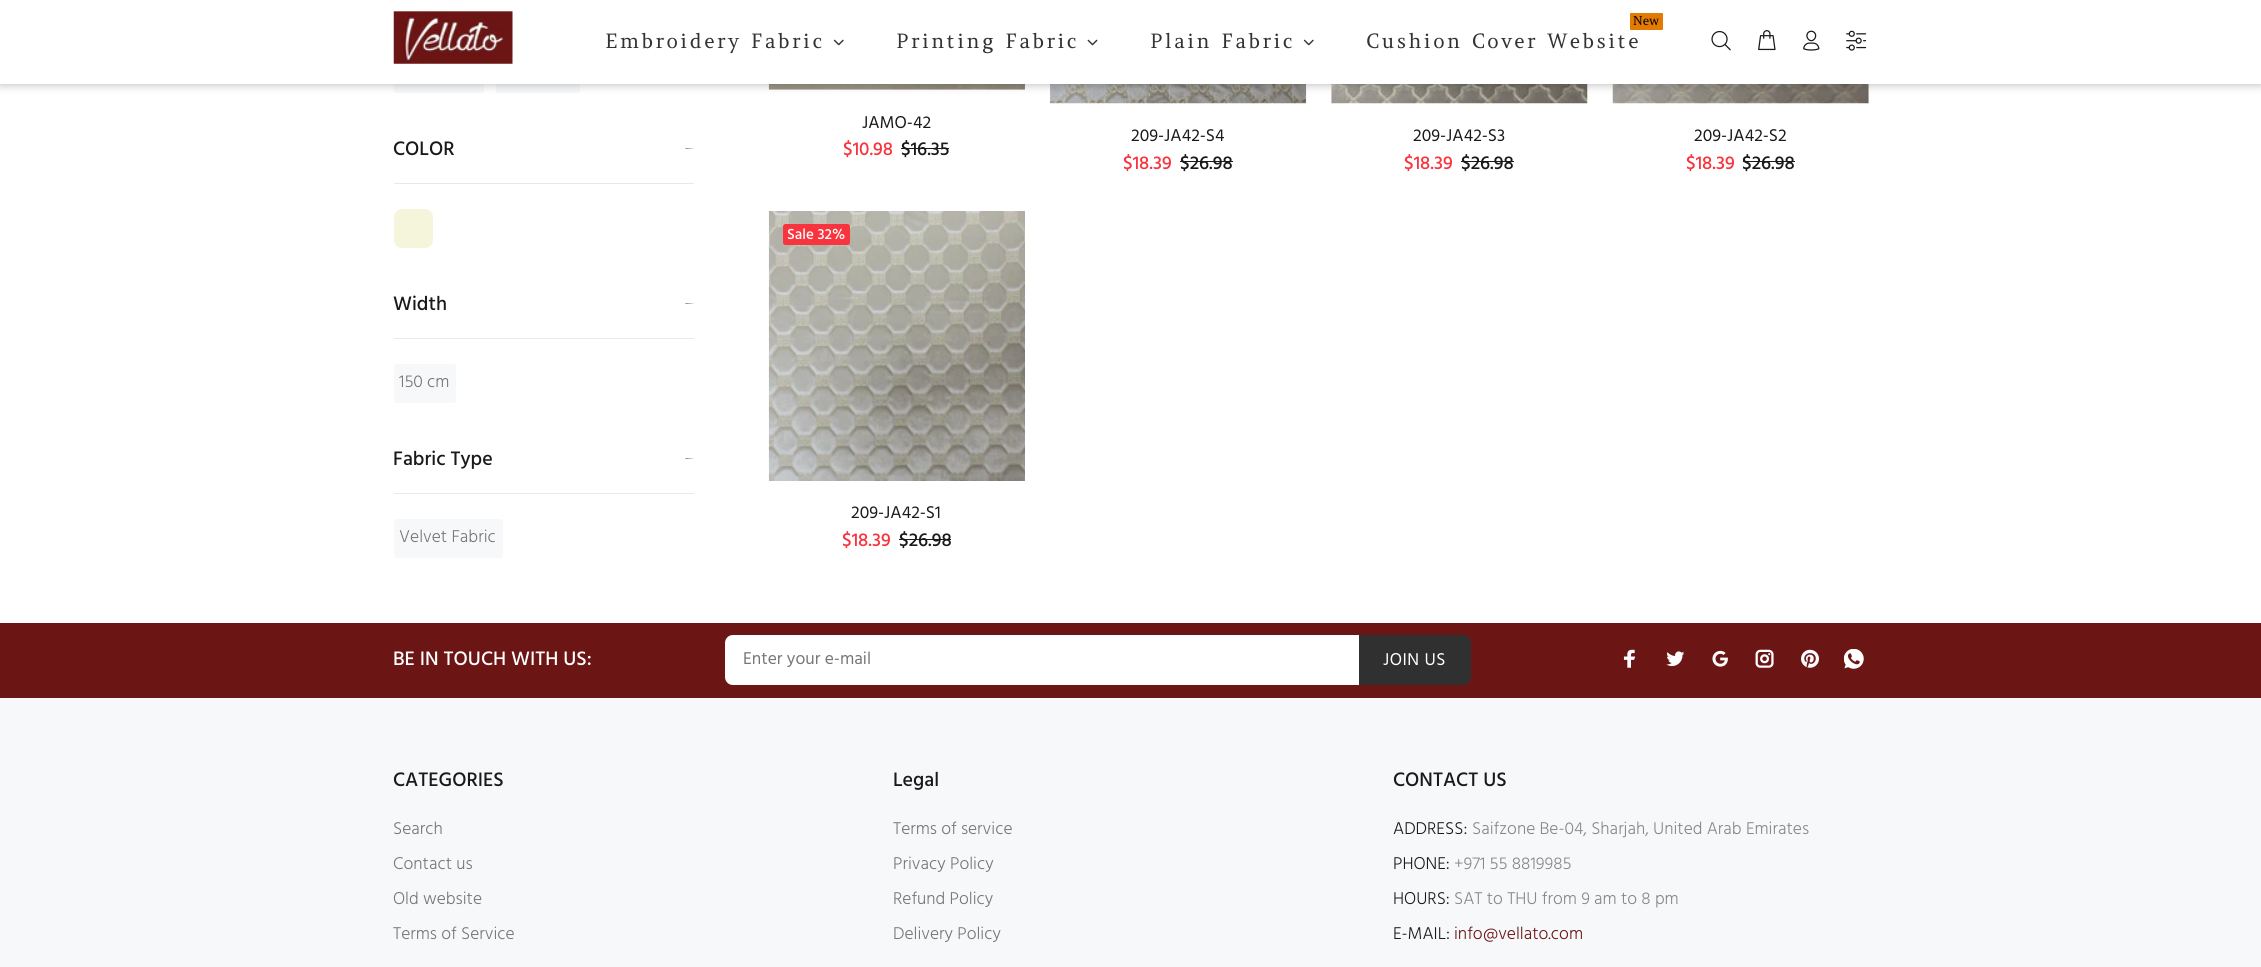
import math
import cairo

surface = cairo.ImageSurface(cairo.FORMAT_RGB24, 2261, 967)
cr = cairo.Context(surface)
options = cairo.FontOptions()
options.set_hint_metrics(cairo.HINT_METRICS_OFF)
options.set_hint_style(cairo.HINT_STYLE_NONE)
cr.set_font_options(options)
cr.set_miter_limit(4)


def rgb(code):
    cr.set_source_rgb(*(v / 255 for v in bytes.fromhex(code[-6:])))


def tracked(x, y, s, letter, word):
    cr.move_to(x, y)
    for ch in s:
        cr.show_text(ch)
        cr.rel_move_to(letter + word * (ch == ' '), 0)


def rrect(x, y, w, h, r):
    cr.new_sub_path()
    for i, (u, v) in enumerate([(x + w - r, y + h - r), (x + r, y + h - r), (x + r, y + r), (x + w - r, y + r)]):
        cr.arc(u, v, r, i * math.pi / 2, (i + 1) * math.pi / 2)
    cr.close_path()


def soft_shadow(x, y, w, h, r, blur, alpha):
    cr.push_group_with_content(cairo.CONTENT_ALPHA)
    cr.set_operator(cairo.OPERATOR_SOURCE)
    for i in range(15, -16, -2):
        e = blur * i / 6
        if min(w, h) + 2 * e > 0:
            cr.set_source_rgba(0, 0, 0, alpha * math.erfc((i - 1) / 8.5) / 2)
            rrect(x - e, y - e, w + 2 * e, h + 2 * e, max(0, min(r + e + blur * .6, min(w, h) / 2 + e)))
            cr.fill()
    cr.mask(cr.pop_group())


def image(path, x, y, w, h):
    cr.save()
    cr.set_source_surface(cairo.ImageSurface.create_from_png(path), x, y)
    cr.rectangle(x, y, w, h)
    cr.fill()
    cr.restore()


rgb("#ffffff")
cr.paint()
rgb("#f7f8fa")
rrect(394, 54, 90, 39, 2.5)
cr.fill()
rrect(496, 54, 84, 39, 2.5)
cr.fill()
image("img/8.png", 768, 84, 257, 6)
image("img/9.png", 1050, 84, 257, 20)
image("img/10.png", 1331, 84, 257, 20)
image("img/11.png", 1612, 84, 257, 20)
rgb("#000000")
soft_shadow(0, 0, 2261, 84, 0, 5, 0.3)
rgb("#ffffff")
cr.rectangle(0, 0, 2261, 84)
cr.fill()
image("img/1.png", 393, 11, 120, 53)
image("img/2.png", 833, 39, 11, 7)
image("img/3.png", 1087, 39, 11, 7)
image("img/2.png", 1303, 39, 11, 7)
rgb("#e27a03")
rrect(1630, 13, 33, 17, 1)
cr.fill()
image("img/4.png", 1711, 30, 20, 21)
image("img/5.png", 1758, 30, 18, 21)
image("img/6.png", 1803, 30, 17, 21)
image("img/7.png", 1846, 30, 21, 21)
rgb("#e9e7e7")
cr.rectangle(394, 183, 300, 1)
cr.fill()
rgb("#191919")
cr.new_path()
cr.move_to(694.5, 148.5)
cr.line_to(695, 148.5)
cr.line_to(685.5, 148.5)
cr.line_to(685.5, 148)
cr.close_path()
cr.fill()
rgb("#f5f5dc")
rrect(394, 209, 39, 39, 8)
cr.fill()
rgb("#e9e7e7")
cr.rectangle(394, 338, 300, 1)
cr.fill()
rgb("#191919")
cr.new_path()
cr.move_to(694.5, 303.5)
cr.line_to(695, 303.5)
cr.line_to(685.5, 303.5)
cr.line_to(685.5, 303)
cr.close_path()
cr.fill()
rgb("#f7f8fa")
rrect(394, 364, 62, 39, 2.5)
cr.fill()
rgb("#e9e7e7")
cr.rectangle(394, 493, 300, 1)
cr.fill()
rgb("#191919")
cr.new_path()
cr.move_to(694.5, 458.5)
cr.line_to(695, 458.5)
cr.line_to(685.5, 458.5)
cr.line_to(685.5, 458)
cr.close_path()
cr.fill()
rgb("#f7f8fa")
rrect(394, 519, 109, 39, 2.5)
cr.fill()
for x, y, w, h, color in [
    (901, 148, 48, 1, "#191919"),
    (1180, 161, 53, 1, "#191919"),
    (1461, 161, 53, 1, "#191919"),
    (1743, 161, 52, 1, "#191919"),
]:
    rgb(color)
    cr.rectangle(x, y, w, h)
    cr.fill()
image("img/12.png", 768, 211, 257, 270)
rgb("#f8353e")
rrect(783, 224, 67, 21, 2.5)
cr.fill()
for x, y, w, h, color in [
    (899, 539, 52, 1, "#191919"),
    (0, 698, 2261, 269, "#f7f8fa"),
    (0, 623, 2261, 75, "#6b1514"),
]:
    rgb(color)
    cr.rectangle(x, y, w, h)
    cr.fill()
rgb("#ffffff")
cr.new_path()
cr.move_to(733, 635)
cr.line_to(1359, 635)
cr.line_to(1359, 685)
cr.line_to(733, 685)
cr.curve_to(728.5, 685, 725, 681.5, 725, 677)
cr.line_to(725, 643)
cr.curve_to(725, 638.5, 728.5, 635, 733, 635)
cr.close_path()
cr.fill()
rgb("#303030")
cr.new_path()
cr.move_to(1359, 635)
cr.line_to(1463, 635)
cr.curve_to(1467.5, 635, 1471, 638.5, 1471, 643)
cr.line_to(1471, 677)
cr.curve_to(1471, 681.5, 1467.5, 685, 1463, 685)
cr.line_to(1359, 685)
cr.close_path()
cr.fill()
image("img/13.png", 1623, 649, 13, 19)
image("img/14.png", 1666, 651, 19, 16)
image("img/15.png", 1712, 650, 16, 17)
image("img/16.png", 1755, 649, 19, 19)
image("img/17.png", 1801, 649, 18, 19)
image("img/18.png", 1844, 649, 20, 20)
cr.select_font_face("Amethysta")
cr.set_font_size(20)
rgb("#333333")
for x, y, s in [
    (605, 48, "Embroidery Fabric"),
    (896, 48, "Printing Fabric"),
    (1150, 48, "Plain Fabric"),
]:
    tracked(x, y, s, 2.5, 0)
cr.set_font_size(12.5)
rgb("#000000")
cr.move_to(1633, 25)
cr.show_text("New")
cr.set_font_size(20)
rgb("#333333")
tracked(1366, 48, "Cushion Cover Website", 2.5, 0)
cr.select_font_face("Hind Medium")
rgb("#191919")
cr.move_to(393, 155)
cr.show_text("COLOR")
cr.move_to(393, 310)
cr.show_text("Width")
cr.select_font_face("Hind Light")
cr.set_font_size(17.5)
rgb("#777777")
cr.move_to(399, 387)
cr.show_text("150 cm")
cr.select_font_face("Hind Medium")
cr.set_font_size(20)
rgb("#191919")
cr.move_to(393, 465)
cr.show_text("Fabric Type")
cr.select_font_face("Hind Light")
cr.set_font_size(17.5)
rgb("#777777")
cr.move_to(399, 542)
cr.show_text("Velvet Fabric")
cr.select_font_face("Hind")
rgb("#191919")
cr.move_to(862, 128)
cr.show_text("JAMO-42")
cr.select_font_face("Hind Medium")
cr.set_font_size(19)
rgb("#f8353e")
cr.move_to(843, 155)
cr.show_text("$10.98")
rgb("#191919")
cr.move_to(901, 155)
cr.show_text("$16.35")
cr.select_font_face("Hind")
cr.set_font_size(17.5)
cr.move_to(1131, 141)
cr.show_text("209-JA42-S4")
cr.select_font_face("Hind Medium")
cr.set_font_size(19)
rgb("#f8353e")
cr.move_to(1123, 169)
cr.show_text("$18.39")
rgb("#191919")
cr.move_to(1180, 169)
cr.show_text("$26.98")
cr.select_font_face("Hind")
cr.set_font_size(17.5)
cr.move_to(1413, 141)
cr.show_text("209-JA42-S3")
cr.select_font_face("Hind Medium")
cr.set_font_size(19)
rgb("#f8353e")
cr.move_to(1404, 169)
cr.show_text("$18.39")
rgb("#191919")
cr.move_to(1461, 169)
cr.show_text("$26.98")
cr.select_font_face("Hind")
cr.set_font_size(17.5)
cr.move_to(1694, 141)
cr.show_text("209-JA42-S2")
cr.select_font_face("Hind Medium")
cr.set_font_size(19)
rgb("#f8353e")
cr.move_to(1686, 169)
cr.show_text("$18.39")
rgb("#191919")
cr.move_to(1742, 169)
cr.show_text("$26.98")
cr.set_font_size(15)
rgb("#ffffff")
cr.move_to(787, 239)
cr.show_text("Sale 32%")
cr.select_font_face("Hind")
cr.set_font_size(17.5)
rgb("#191919")
cr.move_to(851, 518)
cr.show_text("209-JA42-S1")
cr.select_font_face("Hind Medium")
cr.set_font_size(19)
rgb("#f8353e")
cr.move_to(842, 546)
cr.show_text("$18.39")
rgb("#191919")
cr.move_to(899, 546)
cr.show_text("$26.98")
cr.set_font_size(20)
rgb("#ffffff")
cr.move_to(393, 665)
cr.show_text("BE IN TOUCH WITH US:")
cr.select_font_face("Hind")
cr.set_font_size(17.5)
rgb("#777777")
cr.move_to(743, 664)
cr.show_text("Enter your e-mail")
rgb("#ffffff")
tracked(1383, 665, "JOIN US", 0.5, 0)
cr.select_font_face("Hind Medium")
cr.set_font_size(20)
rgb("#191919")
cr.move_to(393, 786)
cr.show_text("CATEGORIES")
cr.select_font_face("Hind Light")
cr.set_font_size(17.5)
rgb("#777777")
for x, y, s in [
    (393, 834, "Search"),
    (393, 869, "Contact us"),
    (393, 904, "Old website"),
    (393, 939, "Terms of Service"),
]:
    cr.move_to(x, y)
    cr.show_text(s)
cr.select_font_face("Hind Medium")
cr.set_font_size(20)
rgb("#191919")
cr.move_to(893, 786)
cr.show_text("Legal")
cr.select_font_face("Hind Light")
cr.set_font_size(17.5)
rgb("#777777")
for x, y, s in [
    (893, 834, "Terms of service"),
    (893, 869, "Privacy Policy"),
    (893, 904, "Refund Policy"),
    (893, 939, "Delivery Policy"),
]:
    cr.move_to(x, y)
    cr.show_text(s)
cr.select_font_face("Hind Medium")
cr.set_font_size(20)
rgb("#191919")
cr.move_to(1393, 786)
cr.show_text("CONTACT US")
cr.select_font_face("Hind Light")
cr.set_font_size(17.5)
cr.move_to(1393, 834)
cr.show_text("ADDRESS:")
rgb("#888888")
cr.move_to(1472, 834)
cr.show_text("Saifzone Be-04, Sharjah, United Arab Emirates")
rgb("#191919")
cr.move_to(1393, 869)
cr.show_text("PHONE:")
rgb("#888888")
cr.move_to(1454, 869)
cr.show_text("+971 55 8819985")
rgb("#191919")
cr.move_to(1393, 904)
cr.show_text("HOURS:")
rgb("#888888")
cr.move_to(1454, 904)
cr.show_text("SAT to THU from 9 am to 8 pm")
rgb("#191919")
cr.move_to(1393, 939)
cr.show_text("E-MAIL:")
rgb("#6b1514")
cr.move_to(1454, 939)
cr.show_text("info@vellato.com")
surface.write_to_png("page.png")
